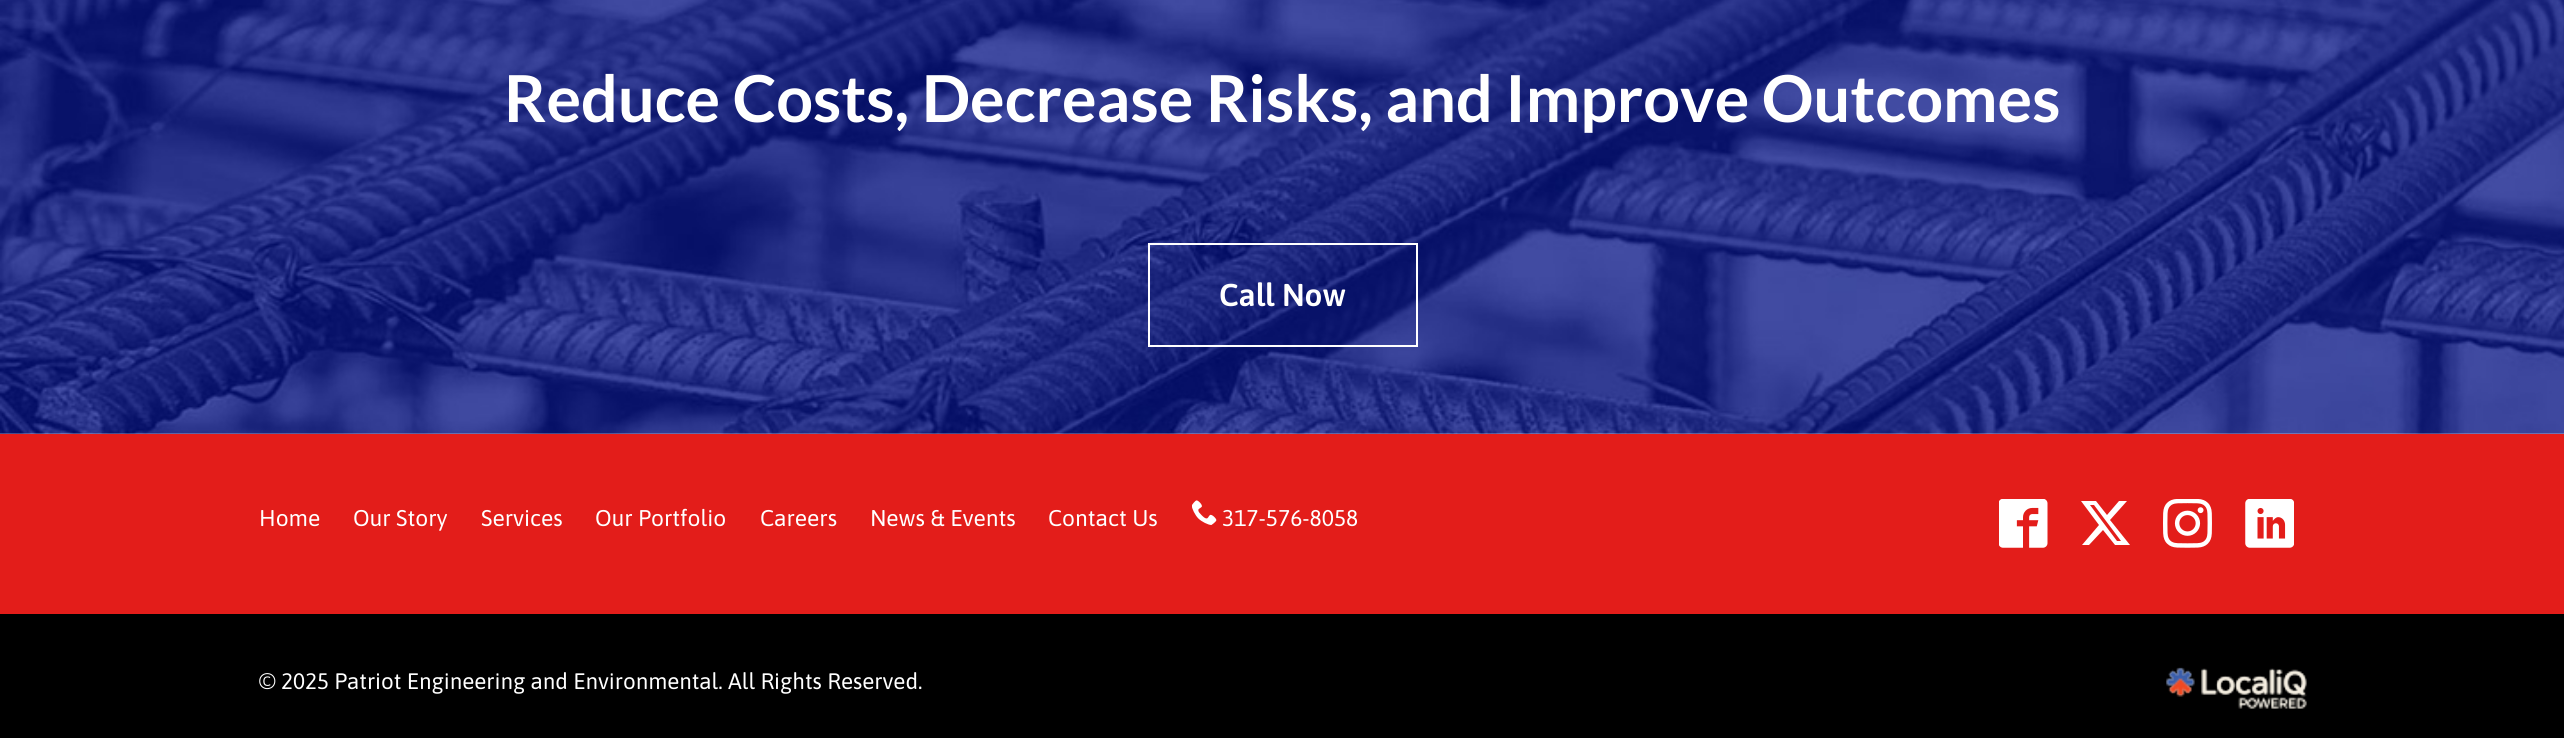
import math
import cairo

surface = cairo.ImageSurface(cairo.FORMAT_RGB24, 2564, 738)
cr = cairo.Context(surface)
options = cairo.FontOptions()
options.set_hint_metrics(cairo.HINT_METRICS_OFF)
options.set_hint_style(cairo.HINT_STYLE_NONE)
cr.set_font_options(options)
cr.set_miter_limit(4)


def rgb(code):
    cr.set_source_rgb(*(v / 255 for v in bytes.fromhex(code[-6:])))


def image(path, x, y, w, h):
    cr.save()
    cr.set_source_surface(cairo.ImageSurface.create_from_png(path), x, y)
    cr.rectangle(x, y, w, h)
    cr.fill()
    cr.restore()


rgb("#ffffff")
cr.paint()
image("img/1.png", 0, 0, 2564, 434)
cr.rectangle(1149, 244, 268, 102)
rgb("#ffffff")
cr.stroke()
rgb("#e31d1a")
cr.rectangle(0, 434, 2564, 180)
cr.fill()
image("img/2.png", 1192, 500, 25, 25)
image("img/3.png", 1999, 499, 49, 49)
rgb("#ffffff")
cr.new_path()
cr.move_to(2119, 501)
cr.line_to(2127, 501)
cr.line_to(2110, 520)
cr.line_to(2130, 545)
cr.line_to(2115, 545)
cr.line_to(2103, 530)
cr.line_to(2089, 545)
cr.line_to(2082, 545)
cr.line_to(2099, 525)
cr.line_to(2081, 501)
cr.line_to(2096, 501)
cr.line_to(2107, 515)
cr.close_path()
cr.move_to(2117, 541)
cr.line_to(2121, 541)
cr.line_to(2094, 505)
cr.line_to(2090, 505)
cr.close_path()
cr.fill()
image("img/4.png", 2163, 499, 49, 49)
image("img/5.png", 2245, 499, 49, 49)
rgb("#000000")
cr.rectangle(0, 614, 2564, 124)
cr.fill()
image("img/6.png", 2166, 667, 141, 42)
cr.select_font_face("Lato", cairo.FONT_SLANT_NORMAL, cairo.FONT_WEIGHT_BOLD)
cr.set_font_size(64.75)
rgb("#ffffff")
cr.move_to(504, 122)
cr.show_text("Reduce Costs, Decrease Risks, and Improve Outcomes")
cr.select_font_face("Asap SemiBold")
cr.set_font_size(31.5)
cr.move_to(1219, 306)
cr.show_text("Call Now")
cr.select_font_face("Asap")
cr.set_font_size(22.75)
for x, y, s in [
    (259, 526, "Home"),
    (353, 526, "Our Story"),
    (481, 526, "Services"),
    (595, 526, "Our Portfolio"),
    (760, 526, "Careers"),
    (870, 526, "News & Events"),
    (1048, 526, "Contact Us"),
    (1222, 526, "317-576-8058"),
]:
    cr.move_to(x, y)
    cr.show_text(s)
cr.set_font_size(22.4)
cr.move_to(259, 689)
cr.show_text("© 2025 Patriot Engineering and Environmental. All Rights Reserved.")
surface.write_to_png("page.png")
